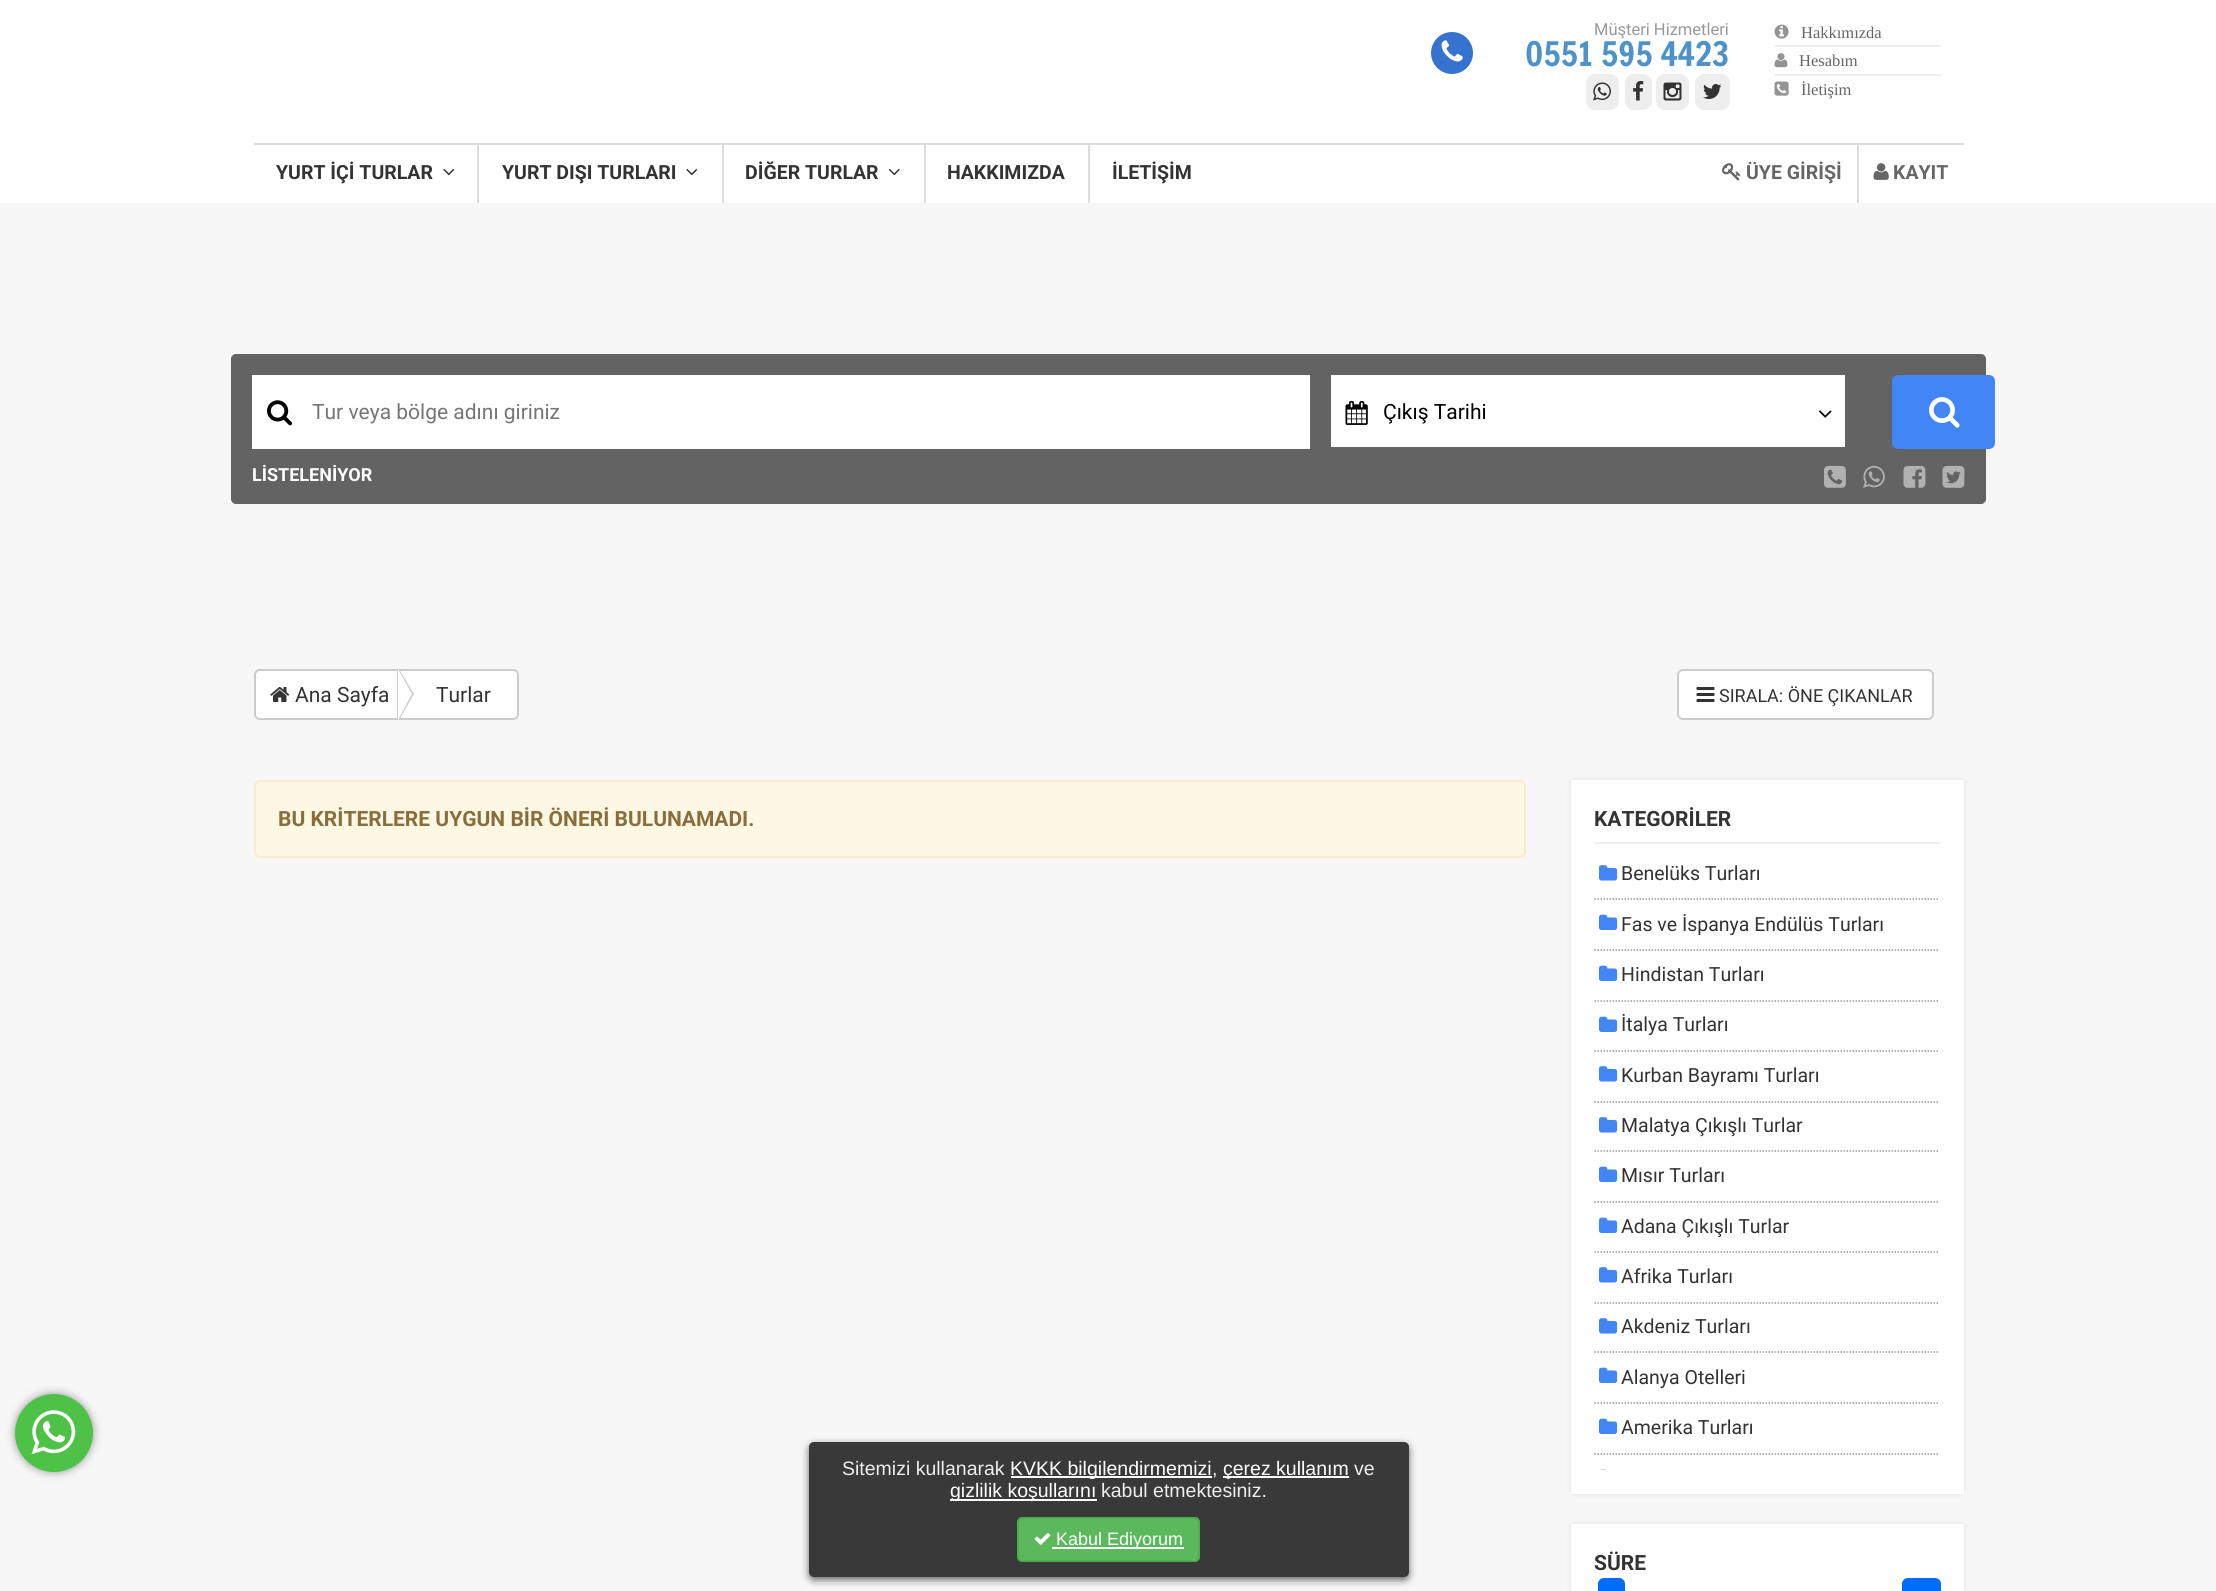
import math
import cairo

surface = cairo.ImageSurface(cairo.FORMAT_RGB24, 2216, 1591)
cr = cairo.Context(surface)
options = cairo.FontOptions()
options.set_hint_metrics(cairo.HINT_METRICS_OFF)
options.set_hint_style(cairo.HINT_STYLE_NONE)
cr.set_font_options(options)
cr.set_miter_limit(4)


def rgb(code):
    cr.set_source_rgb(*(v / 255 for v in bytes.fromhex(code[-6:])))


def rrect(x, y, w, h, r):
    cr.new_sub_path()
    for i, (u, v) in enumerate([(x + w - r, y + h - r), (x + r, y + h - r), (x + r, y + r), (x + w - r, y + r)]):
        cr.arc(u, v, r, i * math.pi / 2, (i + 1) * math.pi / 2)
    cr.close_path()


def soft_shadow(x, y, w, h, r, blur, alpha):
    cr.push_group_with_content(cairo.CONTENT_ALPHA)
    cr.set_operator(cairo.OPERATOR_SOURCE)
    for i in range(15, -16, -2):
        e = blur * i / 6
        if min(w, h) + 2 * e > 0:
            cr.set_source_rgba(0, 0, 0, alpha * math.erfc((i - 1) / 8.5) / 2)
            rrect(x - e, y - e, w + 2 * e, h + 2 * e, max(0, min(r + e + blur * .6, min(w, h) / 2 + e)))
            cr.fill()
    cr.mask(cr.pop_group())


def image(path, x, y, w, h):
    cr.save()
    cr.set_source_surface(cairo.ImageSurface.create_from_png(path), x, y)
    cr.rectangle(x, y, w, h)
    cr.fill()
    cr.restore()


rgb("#f7f7f7")
cr.paint()
rgb("#ffffff")
cr.rectangle(0, 0, 2216, 203)
cr.fill()
rgb("#3673ce")
cr.arc(1452, 53, 21, 0, 2 * math.pi)
cr.fill()
image("img/1.png", 1441, 40, 22, 22)
rgb("#eeeeee")
rrect(1586, 74, 33, 36, 9)
cr.fill()
image("img/2.png", 1593, 82, 18, 19)
rrect(1625, 74, 27, 36, 9)
cr.fill()
image("img/3.png", 1633, 81, 11, 20)
rrect(1656, 74, 33, 36, 9)
cr.fill()
image("img/4.png", 1663, 82, 19, 19)
rrect(1695, 74, 35, 36, 9)
cr.fill()
image("img/5.png", 1703, 84, 19, 15)
cr.rectangle(1775, 45, 166, 2)
cr.fill()
image("img/6.png", 1774, 24, 15, 15)
cr.rectangle(1775, 74, 166, 2)
cr.fill()
image("img/7.png", 1774, 53, 14, 15)
image("img/8.png", 1774, 81, 15, 15)
for x, y, w, h, color in [
    (1857, 144, 2, 59, "#dddddd"),
    (254, 143, 1710, 2, "#dddddd"),
    (477, 144, 2, 59, "#dddddd"),
]:
    rgb(color)
    cr.rectangle(x, y, w, h)
    cr.fill()
image("img/9.png", 443, 168, 12, 8)
cr.rectangle(722, 144, 2, 59)
cr.fill()
image("img/9.png", 686, 168, 12, 8)
cr.rectangle(924, 144, 2, 59)
cr.fill()
image("img/10.png", 888, 168, 12, 8)
cr.rectangle(1088, 144, 2, 59)
cr.fill()
image("img/11.png", 1722, 163, 19, 18)
image("img/12.png", 1873, 163, 16, 17)
rgb("#000000")
soft_shadow(15, 1394, 78, 78, 39, 4.5, 0.4)
rgb("#4dc247")
cr.arc(54, 1433, 39, 0, 2 * math.pi)
cr.fill()
image("img/13.png", 31, 1410, 45, 45)
rgb("#636363")
rrect(231, 354, 1755, 150, 5)
cr.fill()
rgb("#ffffff")
cr.rectangle(252, 375, 1058, 74)
cr.fill()
image("img/14.png", 267, 400, 26, 26)
cr.rectangle(1331, 375, 514, 72)
cr.fill()
image("img/15.png", 1345, 400, 23, 25)
image("img/16.png", 1819, 410, 13, 8)
rgb("#4285f4")
rrect(1892, 375, 103, 74, 6)
cr.fill()
image("img/17.png", 1929, 397, 31, 31)
image("img/18.png", 1824, 465, 22, 23)
image("img/19.png", 1863, 465, 22, 23)
image("img/20.png", 1903, 465, 23, 23)
image("img/21.png", 1942, 465, 23, 23)
rgb("#ffffff")
cr.new_path()
cr.move_to(260, 670)
cr.line_to(398, 670)
cr.line_to(398, 719)
cr.line_to(260, 719)
cr.curve_to(257, 719, 255, 717, 255, 714)
cr.line_to(255, 675)
cr.curve_to(255, 672, 257, 670, 260, 670)
cr.close_path()
cr.fill_preserve()
rgb("#cccccc")
cr.stroke()
rgb("#ffffff")
cr.new_path()
cr.move_to(399, 670)
cr.line_to(513, 670)
cr.curve_to(516, 670, 518, 672, 518, 675)
cr.line_to(518, 714)
cr.curve_to(518, 717, 516, 719, 513, 719)
cr.line_to(399, 719)
cr.close_path()
cr.fill_preserve()
rgb("#cccccc")
cr.stroke()
cr.new_path()
cr.move_to(399, 720)
cr.line_to(399, 669)
cr.line_to(414, 694)
cr.close_path()
cr.fill()
rgb("#ffffff")
cr.new_path()
cr.move_to(398, 720)
cr.line_to(398, 669)
cr.line_to(412, 694)
cr.close_path()
cr.fill()
image("img/22.png", 270, 687, 20, 15)
rrect(1678, 670, 255, 49, 5)
cr.fill_preserve()
rgb("#cccccc")
cr.stroke()
image("img/23.png", 1696, 687, 19, 15)
rgb("#fcf8e3")
rrect(255, 781, 1270, 76, 5)
cr.fill_preserve()
rgb("#faebcc")
cr.stroke()
rgb("#999999")
soft_shadow(1574, 783, 387, 708, 0, 3, 1)
rgb("#ffffff")
cr.rectangle(1571, 780, 393, 714)
cr.fill()
rgb("#eeeeee")
cr.rectangle(1595, 842, 345, 2)
cr.fill()
cr.new_path()
cr.move_to(1594.5, 899)
cr.line_to(1939.5, 899)
rgb("#999999")
cr.set_line_width(1.5)
cr.set_dash([1.5, 1.5])
cr.stroke()
image("img/24.png", 1599, 865, 19, 16)
cr.new_path()
cr.move_to(1594.5, 950)
cr.line_to(1939.5, 950)
cr.stroke()
image("img/25.png", 1599, 914, 19, 16)
cr.new_path()
cr.move_to(1594.5, 1001)
cr.line_to(1939.5, 1001)
cr.stroke()
image("img/25.png", 1599, 965, 19, 16)
cr.new_path()
cr.move_to(1594.5, 1051)
cr.line_to(1939.5, 1051)
cr.stroke()
image("img/25.png", 1599, 1016, 19, 16)
cr.new_path()
cr.move_to(1594.5, 1102)
cr.line_to(1939.5, 1102)
cr.stroke()
image("img/24.png", 1599, 1066, 19, 16)
cr.new_path()
cr.move_to(1594.5, 1151)
cr.line_to(1939.5, 1151)
cr.stroke()
image("img/24.png", 1599, 1117, 19, 16)
cr.new_path()
cr.move_to(1594.5, 1202)
cr.line_to(1939.5, 1202)
cr.stroke()
image("img/25.png", 1599, 1166, 19, 16)
cr.new_path()
cr.move_to(1594.5, 1252)
cr.line_to(1939.5, 1252)
cr.stroke()
image("img/25.png", 1599, 1217, 19, 16)
cr.new_path()
cr.move_to(1594.5, 1303)
cr.line_to(1939.5, 1303)
cr.stroke()
image("img/24.png", 1599, 1267, 19, 16)
cr.new_path()
cr.move_to(1594.5, 1352)
cr.line_to(1939.5, 1352)
cr.stroke()
image("img/24.png", 1599, 1318, 19, 16)
cr.new_path()
cr.move_to(1594.5, 1403)
cr.line_to(1939.5, 1403)
cr.stroke()
image("img/25.png", 1599, 1367, 19, 16)
cr.new_path()
cr.move_to(1594.5, 1454)
cr.line_to(1939.5, 1454)
cr.stroke()
image("img/25.png", 1599, 1418, 19, 16)
image("img/26.png", 1600, 1469, 6, 1)
rgb("#999999")
soft_shadow(1574, 1527, 387, 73, 0, 3, 1)
rgb("#ffffff")
cr.rectangle(1571, 1524, 393, 67)
cr.fill()
rgb("#006cfa")
rrect(1598, 1578, 27, 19, 6)
cr.fill()
rrect(1902, 1578, 39, 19, 6)
cr.fill()
rgb("#666666")
soft_shadow(809, 1445, 600, 135, 5, 4, 1)
rgb("#393939")
rrect(809, 1442, 600, 135, 5)
cr.fill()
for x, y, w, h, color in [
    (1011, 1476, 201, 2, "#ffffff"),
    (1223, 1476, 126, 2, "#ffffff"),
    (950, 1499, 147, 2, "#ffffff"),
]:
    rgb(color)
    cr.rectangle(x, y, w, h)
    cr.fill()
rgb("#5cb85c")
rrect(1018, 1518, 181, 43, 4)
cr.fill_preserve()
rgb("#4cae4c")
cr.set_line_width(2)
cr.set_dash([])
cr.stroke()
image("img/27.png", 1034, 1533, 17, 12)
rgb("#ffffff")
cr.rectangle(1052, 1547, 132, 2)
cr.fill()
cr.select_font_face("Roboto")
cr.set_font_size(16.5)
rgb("#999999")
cr.move_to(1594, 35)
cr.show_text("Müşteri Hizmetleri")
cr.select_font_face("Francois One")
cr.set_font_size(33)
rgb("#4d93ca")
cr.move_to(1525, 66)
cr.show_text("0551 595 4423")
cr.select_font_face("Liberation Serif")
cr.set_font_size(16.5)
rgb("#666666")
for x, y, s in [
    (1801, 38, "Hakkımızda"),
    (1799, 66, "Hesabım"),
    (1801, 95, "İletişim"),
]:
    cr.move_to(x, y)
    cr.show_text(s)
cr.select_font_face("Roboto", cairo.FONT_SLANT_NORMAL, cairo.FONT_WEIGHT_BOLD)
cr.set_font_size(19.5)
rgb("#333333")
for x, y, s in [
    (276, 179, "YURT İÇİ TURLAR"),
    (502, 179, "YURT DIŞI TURLARI"),
    (745, 179, "DİĞER TURLAR"),
    (947, 179, "HAKKIMIZDA"),
    (1112, 179, "İLETİŞİM"),
]:
    cr.move_to(x, y)
    cr.show_text(s)
rgb("#666666")
cr.move_to(1746, 179)
cr.show_text("ÜYE GİRİŞİ")
cr.move_to(1893, 179)
cr.show_text("KAYIT")
cr.select_font_face("Roboto")
cr.set_font_size(21)
rgb("#757575")
cr.move_to(312, 419)
cr.show_text("Tur veya bölge adını giriniz")
rgb("#000000")
cr.move_to(1383, 419)
cr.show_text("Çıkış Tarihi")
cr.select_font_face("Roboto", cairo.FONT_SLANT_NORMAL, cairo.FONT_WEIGHT_BOLD)
cr.set_font_size(18)
rgb("#ffffff")
cr.move_to(252, 481)
cr.show_text("LİSTELENİYOR")
cr.select_font_face("Roboto")
cr.set_font_size(21)
rgb("#333333")
cr.move_to(295, 702)
cr.show_text("Ana Sayfa")
cr.move_to(436, 702)
cr.show_text("Turlar")
cr.set_font_size(18)
cr.move_to(1719, 702)
cr.show_text("SIRALA: ÖNE ÇIKANLAR")
cr.select_font_face("Roboto", cairo.FONT_SLANT_NORMAL, cairo.FONT_WEIGHT_BOLD)
cr.set_font_size(21)
rgb("#8a6d3b")
cr.move_to(278, 826)
cr.show_text("BU KRİTERLERE UYGUN BİR ÖNERİ BULUNAMADI.")
rgb("#333333")
cr.move_to(1594, 826)
cr.show_text("KATEGORİLER")
cr.select_font_face("Roboto")
cr.set_font_size(19.5)
for x, y, s in [
    (1621, 880, "Benelüks Turları"),
    (1621, 931, "Fas ve İspanya Endülüs Turları"),
    (1621, 981, "Hindistan Turları"),
    (1621, 1031, "İtalya Turları"),
    (1621, 1082, "Kurban Bayramı Turları"),
    (1621, 1132, "Malatya Çıkışlı Turlar"),
    (1621, 1182, "Mısır Turları"),
    (1621, 1233, "Adana Çıkışlı Turlar"),
    (1621, 1283, "Afrika Turları"),
    (1621, 1333, "Akdeniz Turları"),
    (1621, 1384, "Alanya Otelleri"),
    (1621, 1434, "Amerika Turları"),
]:
    cr.move_to(x, y)
    cr.show_text(s)
cr.select_font_face("Roboto", cairo.FONT_SLANT_NORMAL, cairo.FONT_WEIGHT_BOLD)
cr.set_font_size(21)
cr.move_to(1594, 1570)
cr.show_text("SÜRE")
cr.select_font_face("Liberation Sans")
cr.set_font_size(19.5)
rgb("#eeeeee")
cr.move_to(842, 1475)
cr.show_text("Sitemizi kullanarak")
rgb("#ffffff")
cr.move_to(1010, 1475)
cr.show_text("KVKK bilgilendirmemizi")
rgb("#eeeeee")
cr.move_to(1212, 1475)
cr.show_text(",")
rgb("#ffffff")
cr.move_to(1223, 1475)
cr.show_text("çerez kullanım")
rgb("#eeeeee")
cr.move_to(1354, 1475)
cr.show_text("ve")
rgb("#ffffff")
cr.move_to(950, 1497)
cr.show_text("gizlilik koşullarını")
rgb("#eeeeee")
cr.move_to(1101, 1497)
cr.show_text("kabul etmektesiniz.")
cr.set_font_size(18)
rgb("#ffffff")
cr.move_to(1056, 1545)
cr.show_text("Kabul Ediyorum")
surface.write_to_png("page.png")
